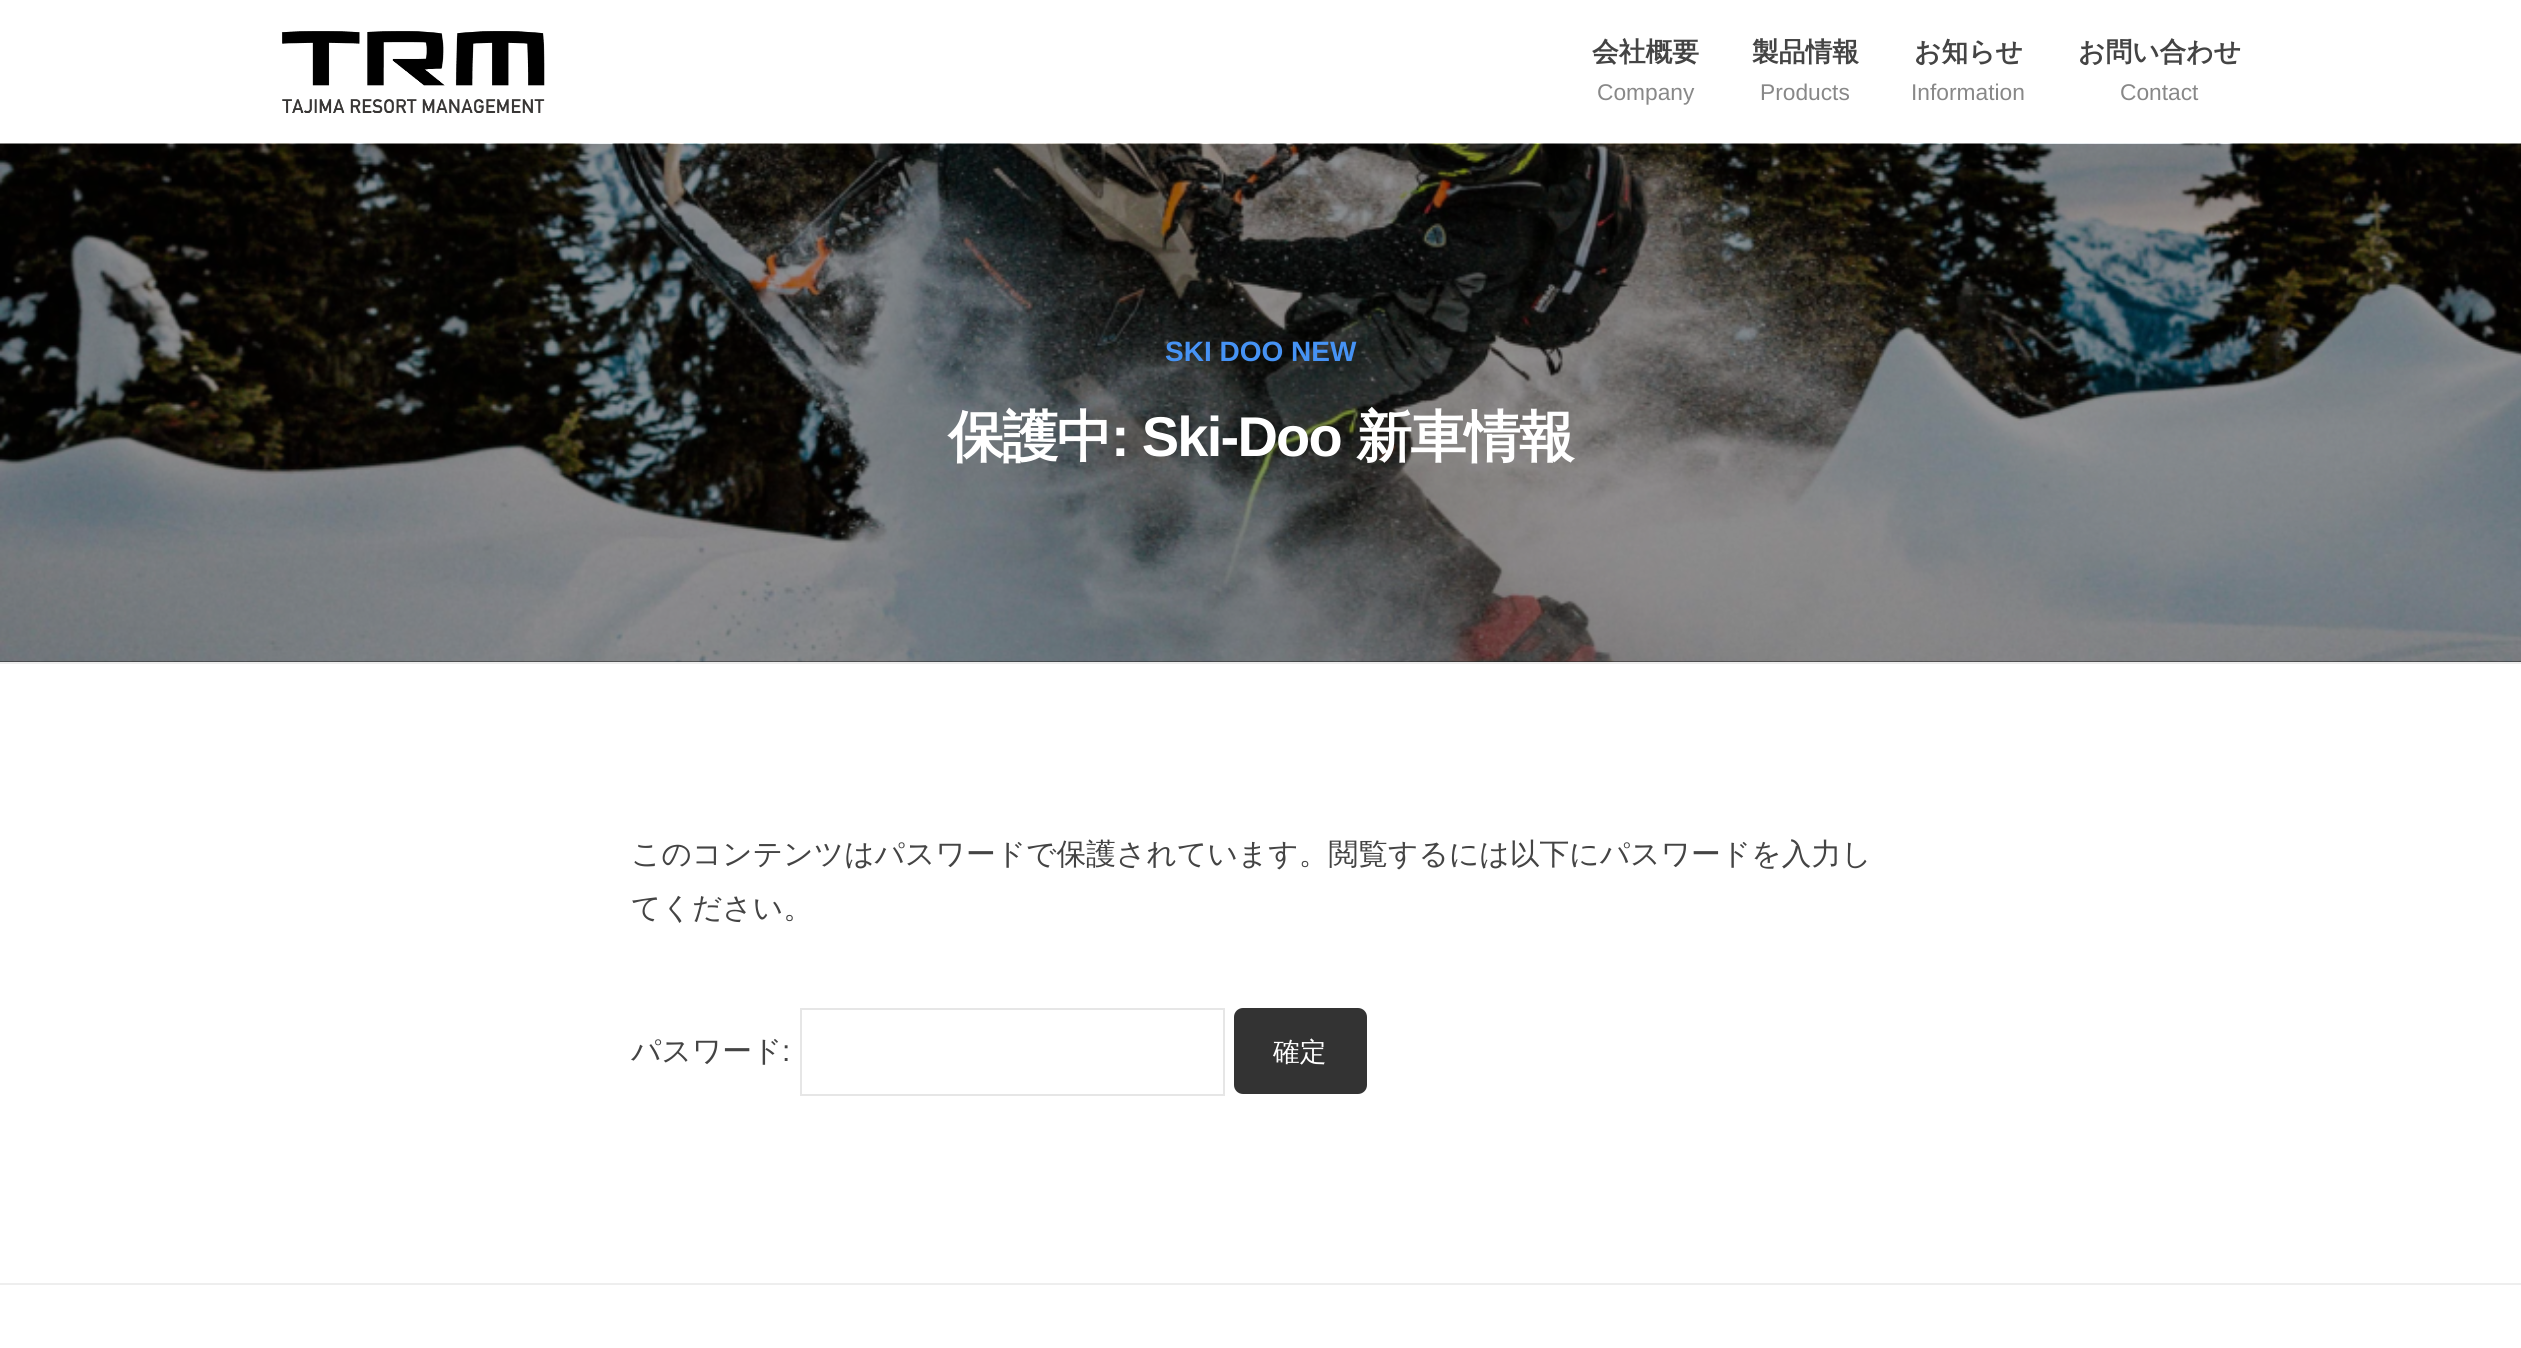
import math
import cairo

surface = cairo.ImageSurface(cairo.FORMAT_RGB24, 2521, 1348)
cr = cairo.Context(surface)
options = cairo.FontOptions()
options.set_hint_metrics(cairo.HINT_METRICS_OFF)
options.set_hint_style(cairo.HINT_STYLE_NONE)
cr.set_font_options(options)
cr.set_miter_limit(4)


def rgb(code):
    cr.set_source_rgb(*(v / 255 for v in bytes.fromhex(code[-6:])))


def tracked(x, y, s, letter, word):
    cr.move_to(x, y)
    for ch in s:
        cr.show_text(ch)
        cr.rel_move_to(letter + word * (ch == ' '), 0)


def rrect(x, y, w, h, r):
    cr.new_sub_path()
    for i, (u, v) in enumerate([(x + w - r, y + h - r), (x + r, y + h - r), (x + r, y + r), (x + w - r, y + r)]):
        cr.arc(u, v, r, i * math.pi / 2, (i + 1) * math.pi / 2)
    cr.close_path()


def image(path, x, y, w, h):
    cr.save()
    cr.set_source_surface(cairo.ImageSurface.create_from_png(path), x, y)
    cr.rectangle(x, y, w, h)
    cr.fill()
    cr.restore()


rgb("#ffffff")
cr.paint()
rgb("#eeeeee")
cr.rectangle(0, 662, 2521, 2)
cr.fill()
image("img/1.png", 281, 31, 264, 82)
rgb("#1f1f1f")
cr.rectangle(0, 661, 2521, 1)
cr.fill()
image("img/2.png", 0, 143, 2521, 519)
cr.rectangle(801, 1009, 423, 86)
rgb("#e6e6e6")
cr.stroke()
rgb("#333333")
rrect(1234, 1008, 133, 86, 9)
cr.fill()
rgb("#eeeeee")
cr.rectangle(0, 1283, 2521, 2)
cr.fill()
cr.select_font_face("WenQuanYi Zen Hei", cairo.FONT_SLANT_NORMAL, cairo.FONT_WEIGHT_BOLD)
cr.set_font_size(26.75)
rgb("#444444")
cr.move_to(1592, 61)
cr.show_text("会社概要")
cr.select_font_face("Liberation Sans")
cr.set_font_size(22.75)
rgb("#888888")
cr.move_to(1597, 100)
cr.show_text("Company")
cr.select_font_face("WenQuanYi Zen Hei", cairo.FONT_SLANT_NORMAL, cairo.FONT_WEIGHT_BOLD)
cr.set_font_size(26.75)
rgb("#444444")
cr.move_to(1752, 61)
cr.show_text("製品情報")
cr.select_font_face("Liberation Sans")
cr.set_font_size(22.75)
rgb("#888888")
cr.move_to(1760, 100)
cr.show_text("Products")
cr.select_font_face("WenQuanYi Zen Hei", cairo.FONT_SLANT_NORMAL, cairo.FONT_WEIGHT_BOLD)
cr.set_font_size(26.75)
rgb("#444444")
cr.move_to(1914, 61)
cr.show_text("お知らせ")
cr.select_font_face("Liberation Sans")
cr.set_font_size(22.75)
rgb("#888888")
cr.move_to(1911, 100)
cr.show_text("Information")
cr.select_font_face("WenQuanYi Zen Hei", cairo.FONT_SLANT_NORMAL, cairo.FONT_WEIGHT_BOLD)
cr.set_font_size(26.75)
rgb("#444444")
cr.move_to(2078, 61)
cr.show_text("お問い合わせ")
cr.select_font_face("Liberation Sans")
cr.set_font_size(22.75)
rgb("#888888")
cr.move_to(2120, 100)
cr.show_text("Contact")
cr.select_font_face("Liberation Sans", cairo.FONT_SLANT_NORMAL, cairo.FONT_WEIGHT_BOLD)
cr.set_font_size(28)
rgb("#4693f5")
cr.move_to(1165, 361)
cr.show_text("SKI DOO NEW")
cr.select_font_face("WenQuanYi Zen Hei", cairo.FONT_SLANT_NORMAL, cairo.FONT_WEIGHT_BOLD)
cr.set_font_size(56)
rgb("#ffffff")
tracked(948, 456, "保護中", -1.75, 0)
cr.select_font_face("Liberation Sans", cairo.FONT_SLANT_NORMAL, cairo.FONT_WEIGHT_BOLD)
tracked(1111, 456, ": Ski-Doo", -1.75, 0)
cr.select_font_face("WenQuanYi Zen Hei", cairo.FONT_SLANT_NORMAL, cairo.FONT_WEIGHT_BOLD)
tracked(1356, 456, "新車情報", -1.75, 0)
cr.select_font_face("WenQuanYi Zen Hei Medium")
cr.set_font_size(29.75)
rgb("#444444")
for x, y, s in [
    (631, 864, "このコンテンツはパスワードで保護されています。閲覧するには以下にパスワードを入力し"),
    (631, 918, "てください。"),
    (631, 1061, "パスワード"),
]:
    cr.move_to(x, y)
    cr.show_text(s)
cr.select_font_face("Liberation Sans")
cr.move_to(782, 1061)
cr.show_text(":")
cr.select_font_face("WenQuanYi Zen Hei Medium")
cr.set_font_size(26.75)
rgb("#ffffff")
cr.move_to(1273, 1061)
cr.show_text("確定")
surface.write_to_png("page.png")
